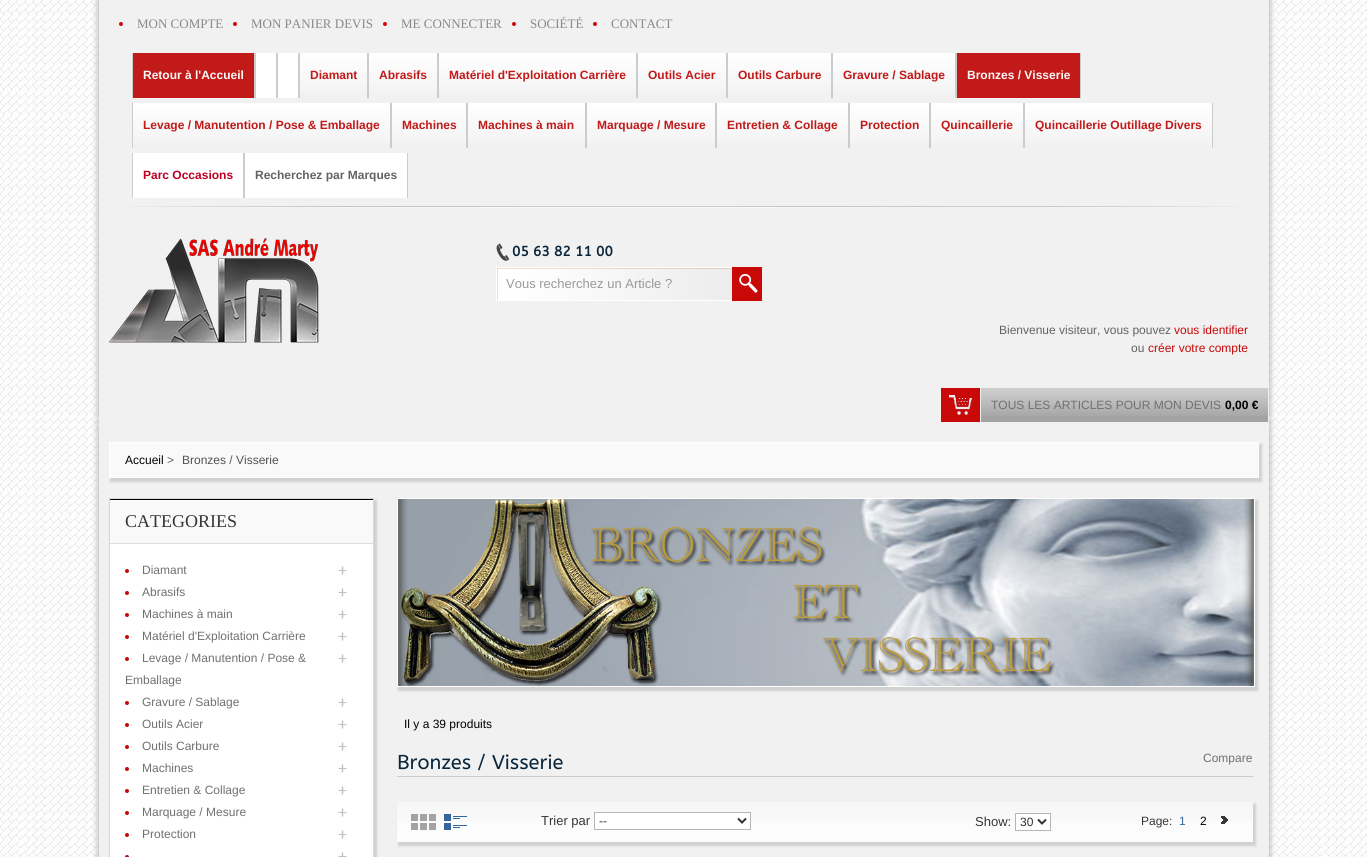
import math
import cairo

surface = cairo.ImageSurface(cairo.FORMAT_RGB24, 1367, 857)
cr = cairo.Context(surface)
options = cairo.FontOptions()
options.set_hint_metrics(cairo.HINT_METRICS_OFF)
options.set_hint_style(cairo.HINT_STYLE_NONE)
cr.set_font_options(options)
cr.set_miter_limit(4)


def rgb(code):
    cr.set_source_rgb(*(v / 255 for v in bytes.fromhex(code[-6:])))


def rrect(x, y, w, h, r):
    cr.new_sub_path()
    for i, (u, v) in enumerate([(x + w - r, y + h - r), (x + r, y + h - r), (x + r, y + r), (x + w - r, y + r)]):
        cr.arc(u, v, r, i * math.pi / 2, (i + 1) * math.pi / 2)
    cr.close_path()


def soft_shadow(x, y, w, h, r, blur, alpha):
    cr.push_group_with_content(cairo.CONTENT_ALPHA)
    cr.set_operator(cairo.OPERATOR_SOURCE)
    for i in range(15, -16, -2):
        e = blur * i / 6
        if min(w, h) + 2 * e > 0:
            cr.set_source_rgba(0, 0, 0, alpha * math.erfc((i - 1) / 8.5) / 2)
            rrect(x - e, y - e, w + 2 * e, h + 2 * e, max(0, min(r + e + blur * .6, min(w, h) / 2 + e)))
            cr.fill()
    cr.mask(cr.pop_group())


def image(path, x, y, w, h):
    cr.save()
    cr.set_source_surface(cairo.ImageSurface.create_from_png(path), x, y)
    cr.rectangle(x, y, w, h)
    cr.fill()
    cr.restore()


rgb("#ffffff")
cr.paint()
image("img/1.png", 0, 0, 1367, 857)
rgb("#bfc0c0")
soft_shadow(97, 420, 1174, 4, 0, 2.5, 1)
soft_shadow(97, 426, 1174, 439, 0, 2.5, 1)
rgb("#f1f1f1")
cr.rectangle(99, 422, 1170, 435)
cr.fill()
rgb("#bfc0c0")
soft_shadow(97, -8, 1174, 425, 0, 2.5, 1)
rgb("#f1f1f1")
cr.rectangle(99, 0, 1170, 422)
cr.fill()
image("img/2.png", 129, 206, 1110, 2)
rgb("#c90808")
cr.arc(121, 24, 2, 0, 2 * math.pi)
cr.fill()
cr.arc(235, 24, 2, 0, 2 * math.pi)
cr.fill()
cr.arc(385, 24, 2, 0, 2 * math.pi)
cr.fill()
cr.arc(514, 24, 2, 0, 2 * math.pi)
cr.fill()
cr.arc(595, 24, 2, 0, 2 * math.pi)
cr.fill()
for x, y, w, h, color in [
    (254, 53, 2, 45, "#cccccc"),
    (132, 53, 1, 45, "#cccccc"),
    (133, 53, 121, 45, "#c21919"),
    (276, 53, 2, 45, "#cccccc"),
    (256, 53, 20, 45, "#ffffff"),
    (298, 53, 2, 45, "#cccccc"),
    (278, 53, 20, 45, "#ffffff"),
    (367, 53, 2, 45, "#cccccc"),
]:
    rgb(color)
    cr.rectangle(x, y, w, h)
    cr.fill()
gradient = cairo.LinearGradient(300, 53, 300, 98)
gradient.add_color_stop_rgba(0, 1, 1, 1, 1)
gradient.add_color_stop_rgba(1, 0.949, 0.949, 0.949, 1)
cr.set_source(gradient)
cr.rectangle(300, 53, 67, 40)
cr.fill()
rgb("#cccccc")
cr.rectangle(437, 53, 2, 45)
cr.fill()
gradient = cairo.LinearGradient(369, 53, 369, 98)
gradient.add_color_stop_rgba(0, 1, 1, 1, 1)
gradient.add_color_stop_rgba(1, 0.949, 0.949, 0.949, 1)
cr.set_source(gradient)
cr.rectangle(369, 53, 68, 40)
cr.fill()
rgb("#cccccc")
cr.rectangle(636, 53, 2, 45)
cr.fill()
gradient = cairo.LinearGradient(439, 53, 439, 98)
gradient.add_color_stop_rgba(0, 1, 1, 1, 1)
gradient.add_color_stop_rgba(1, 0.949, 0.949, 0.949, 1)
cr.set_source(gradient)
cr.rectangle(439, 53, 197, 40)
cr.fill()
rgb("#cccccc")
cr.rectangle(726, 53, 2, 45)
cr.fill()
gradient = cairo.LinearGradient(638, 53, 638, 98)
gradient.add_color_stop_rgba(0, 1, 1, 1, 1)
gradient.add_color_stop_rgba(1, 0.949, 0.949, 0.949, 1)
cr.set_source(gradient)
cr.rectangle(638, 53, 88, 40)
cr.fill()
rgb("#cccccc")
cr.rectangle(831, 53, 2, 45)
cr.fill()
gradient = cairo.LinearGradient(728, 53, 728, 98)
gradient.add_color_stop_rgba(0, 1, 1, 1, 1)
gradient.add_color_stop_rgba(1, 0.949, 0.949, 0.949, 1)
cr.set_source(gradient)
cr.rectangle(728, 53, 103, 40)
cr.fill()
rgb("#cccccc")
cr.rectangle(955, 53, 2, 45)
cr.fill()
gradient = cairo.LinearGradient(833, 53, 833, 98)
gradient.add_color_stop_rgba(0, 1, 1, 1, 1)
gradient.add_color_stop_rgba(1, 0.949, 0.949, 0.949, 1)
cr.set_source(gradient)
cr.rectangle(833, 53, 122, 40)
cr.fill()
for x, y, w, h, color in [
    (1080, 53, 1, 45, "#cccccc"),
    (957, 53, 123, 45, "#c21919"),
    (390, 103, 2, 45, "#cccccc"),
    (132, 103, 1, 45, "#cccccc"),
]:
    rgb(color)
    cr.rectangle(x, y, w, h)
    cr.fill()
gradient = cairo.LinearGradient(133, 103, 133, 148)
gradient.add_color_stop_rgba(0, 1, 1, 1, 1)
gradient.add_color_stop_rgba(1, 0.949, 0.949, 0.949, 1)
cr.set_source(gradient)
cr.rectangle(133, 103, 257, 40)
cr.fill()
rgb("#cccccc")
cr.rectangle(466, 103, 2, 45)
cr.fill()
gradient = cairo.LinearGradient(392, 103, 392, 148)
gradient.add_color_stop_rgba(0, 1, 1, 1, 1)
gradient.add_color_stop_rgba(1, 0.949, 0.949, 0.949, 1)
cr.set_source(gradient)
cr.rectangle(392, 103, 74, 40)
cr.fill()
rgb("#cccccc")
cr.rectangle(585, 103, 2, 45)
cr.fill()
gradient = cairo.LinearGradient(468, 103, 468, 148)
gradient.add_color_stop_rgba(0, 1, 1, 1, 1)
gradient.add_color_stop_rgba(1, 0.949, 0.949, 0.949, 1)
cr.set_source(gradient)
cr.rectangle(468, 103, 117, 40)
cr.fill()
rgb("#cccccc")
cr.rectangle(715, 103, 2, 45)
cr.fill()
gradient = cairo.LinearGradient(587, 103, 587, 148)
gradient.add_color_stop_rgba(0, 1, 1, 1, 1)
gradient.add_color_stop_rgba(1, 0.949, 0.949, 0.949, 1)
cr.set_source(gradient)
cr.rectangle(587, 103, 128, 40)
cr.fill()
rgb("#cccccc")
cr.rectangle(848, 103, 2, 45)
cr.fill()
gradient = cairo.LinearGradient(717, 103, 717, 148)
gradient.add_color_stop_rgba(0, 1, 1, 1, 1)
gradient.add_color_stop_rgba(1, 0.949, 0.949, 0.949, 1)
cr.set_source(gradient)
cr.rectangle(717, 103, 131, 40)
cr.fill()
rgb("#cccccc")
cr.rectangle(929, 103, 2, 45)
cr.fill()
gradient = cairo.LinearGradient(850, 103, 850, 148)
gradient.add_color_stop_rgba(0, 1, 1, 1, 1)
gradient.add_color_stop_rgba(1, 0.949, 0.949, 0.949, 1)
cr.set_source(gradient)
cr.rectangle(850, 103, 79, 40)
cr.fill()
rgb("#cccccc")
cr.rectangle(1023, 103, 2, 45)
cr.fill()
gradient = cairo.LinearGradient(931, 103, 931, 148)
gradient.add_color_stop_rgba(0, 1, 1, 1, 1)
gradient.add_color_stop_rgba(1, 0.949, 0.949, 0.949, 1)
cr.set_source(gradient)
cr.rectangle(931, 103, 92, 40)
cr.fill()
rgb("#cccccc")
cr.rectangle(1212, 103, 1, 45)
cr.fill()
gradient = cairo.LinearGradient(1025, 103, 1025, 148)
gradient.add_color_stop_rgba(0, 1, 1, 1, 1)
gradient.add_color_stop_rgba(1, 0.949, 0.949, 0.949, 1)
cr.set_source(gradient)
cr.rectangle(1025, 103, 187, 40)
cr.fill()
for x, y, w, h, color in [
    (243, 153, 2, 45, "#cccccc"),
    (132, 153, 1, 45, "#cccccc"),
    (133, 153, 110, 45, "#ffffff"),
    (407, 153, 1, 45, "#cccccc"),
    (245, 153, 162, 45, "#ffffff"),
]:
    rgb(color)
    cr.rectangle(x, y, w, h)
    cr.fill()
image("img/3.png", 109, 238, 210, 105)
image("img/4.png", 496, 243, 14, 18)
image("img/5.png", 496, 267, 236, 34)
rgb("#c90808")
cr.rectangle(732, 267, 30, 34)
cr.fill()
image("img/6.png", 739, 274, 19, 19)
cr.rectangle(941, 388, 39, 34)
cr.fill()
image("img/7.png", 949, 395, 23, 20)
rgb("#a3a3a3")
cr.rectangle(981, 416, 287, 6)
cr.fill()
image("img/8.png", 981, 388, 287, 28)
rgb("#d1d1d1")
soft_shadow(110, 444, 1152, 38, 0, 1, 1)
rgb("#f9f9f9")
cr.rectangle(109.5, 442.5, 1149, 35)
cr.fill_preserve()
rgb("#ffffff")
cr.set_line_width(1)
cr.stroke()
rgb("#d1d1d1")
soft_shadow(110, 500, 267, 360, 0, 1, 1)
cr.rectangle(109.5, 498.5, 264, 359)
rgb("#d7d7d7")
cr.stroke()
for x, y, w, h, color in [
    (110, 500, 263, 43, "#f9f9f9"),
    (110, 499, 263, 1, "#000000"),
    (110, 543, 263, 1, "#dddddd"),
    (110, 544, 263, 313, "#ffffff"),
]:
    rgb(color)
    cr.rectangle(x, y, w, h)
    cr.fill()
rgb("#c90808")
cr.arc(127, 571, 2, 0, 2 * math.pi)
cr.fill()
image("img/9.png", 338, 566, 9, 9)
cr.arc(127, 593, 2, 0, 2 * math.pi)
cr.fill()
image("img/9.png", 338, 588, 9, 9)
cr.arc(127, 615, 2, 0, 2 * math.pi)
cr.fill()
image("img/9.png", 338, 610, 9, 9)
cr.arc(127, 637, 2, 0, 2 * math.pi)
cr.fill()
image("img/9.png", 338, 632, 9, 9)
cr.arc(127, 659, 2, 0, 2 * math.pi)
cr.fill()
image("img/9.png", 338, 654, 9, 9)
cr.arc(127, 703, 2, 0, 2 * math.pi)
cr.fill()
image("img/9.png", 338, 698, 9, 9)
cr.arc(127, 725, 2, 0, 2 * math.pi)
cr.fill()
image("img/9.png", 338, 720, 9, 9)
cr.arc(127, 747, 2, 0, 2 * math.pi)
cr.fill()
image("img/9.png", 338, 742, 9, 9)
cr.arc(127, 769, 2, 0, 2 * math.pi)
cr.fill()
image("img/9.png", 338, 764, 9, 9)
cr.arc(127, 791, 2, 0, 2 * math.pi)
cr.fill()
image("img/9.png", 338, 786, 9, 9)
cr.arc(127, 813, 2, 0, 2 * math.pi)
cr.fill()
image("img/9.png", 338, 808, 9, 9)
cr.arc(127, 835, 2, 0, 2 * math.pi)
cr.fill()
image("img/9.png", 338, 830, 9, 9)
cr.arc(127, 857, 2, 0, 2 * math.pi)
cr.fill()
image("img/10.png", 338, 852, 9, 5)
rgb("#d1d1d1")
soft_shadow(398, 500, 860, 191, 0, 1, 1)
cr.rectangle(397.5, 498.5, 857, 188)
rgb("#ffffff")
cr.stroke()
image("img/11.png", 398, 499, 856, 187)
rgb("#cccccc")
cr.rectangle(397, 776, 856, 1)
cr.fill()
rgb("#d1d1d1")
soft_shadow(398, 804, 858, 42, 0, 1, 1)
image("img/12.png", 397, 802, 856, 40)
image("img/13.png", 411, 814, 25, 16)
image("img/14.png", 444, 814, 23, 16)
rgb("#ffffff")
cr.rectangle(594.5, 812.5, 156, 17)
cr.fill_preserve()
rgb("#b6b6b6")
cr.stroke()
cr.new_path()
cr.move_to(738, 818.5)
cr.line_to(742, 822.5)
cr.line_to(746, 818.5)
rgb("#2f2f2f")
cr.set_line_width(2)
cr.stroke()
rgb("#ffffff")
cr.rectangle(1015.5, 813.5, 35, 17)
cr.fill_preserve()
rgb("#b6b6b6")
cr.set_line_width(1)
cr.stroke()
cr.new_path()
cr.move_to(1038, 819.5)
cr.line_to(1042, 823.5)
cr.line_to(1046, 819.5)
rgb("#2f2f2f")
cr.set_line_width(2)
cr.stroke()
image("img/15.png", 1221, 816, 7, 8)
cr.select_font_face("Liberation Serif")
cr.set_font_size(13)
rgb("#898989")
for x, y, s in [
    (137, 28, "MON COMPTE"),
    (251, 28, "MON PANIER DEVIS"),
    (401, 28, "ME CONNECTER"),
    (530, 28, "SOCIÉTÉ"),
    (611, 28, "CONTACT"),
]:
    cr.move_to(x, y)
    cr.show_text(s)
cr.select_font_face("Liberation Sans", cairo.FONT_SLANT_NORMAL, cairo.FONT_WEIGHT_BOLD)
cr.set_font_size(12)
rgb("#fafafa")
cr.move_to(143, 79)
cr.show_text("Retour à l'Accueil")
rgb("#c21919")
for x, y, s in [
    (310, 79, "Diamant"),
    (379, 79, "Abrasifs"),
    (449, 79, "Matériel d'Exploitation Carrière"),
    (648, 79, "Outils Acier"),
    (738, 79, "Outils Carbure"),
    (843, 79, "Gravure / Sablage"),
]:
    cr.move_to(x, y)
    cr.show_text(s)
rgb("#fafafa")
cr.move_to(967, 79)
cr.show_text("Bronzes / Visserie")
rgb("#c21919")
for x, y, s in [
    (143, 129, "Levage / Manutention / Pose & Emballage"),
    (402, 129, "Machines"),
    (478, 129, "Machines à main"),
    (597, 129, "Marquage / Mesure"),
    (727, 129, "Entretien & Collage"),
    (860, 129, "Protection"),
    (941, 129, "Quincaillerie"),
    (1035, 129, "Quincaillerie Outillage Divers"),
]:
    cr.move_to(x, y)
    cr.show_text(s)
rgb("#bf0023")
cr.move_to(143, 179)
cr.show_text("Parc Occasions")
rgb("#636363")
cr.move_to(255, 179)
cr.show_text("Recherchez par Marques")
cr.select_font_face("ABeeZee", cairo.FONT_SLANT_NORMAL, cairo.FONT_WEIGHT_BOLD)
cr.set_font_size(14)
rgb("#0a263c")
cr.move_to(512, 256)
cr.show_text("05 63 82 11 00")
cr.select_font_face("Liberation Sans")
cr.set_font_size(13)
rgb("#999999")
cr.move_to(506, 288)
cr.show_text("Vous recherchez un Article ?")
cr.set_font_size(12)
rgb("#636363")
cr.move_to(999, 334)
cr.show_text("Bienvenue visiteur, vous pouvez")
rgb("#c90808")
cr.move_to(1174, 334)
cr.show_text("vous identifier")
rgb("#636363")
cr.move_to(1131, 352)
cr.show_text("ou")
rgb("#c90808")
cr.move_to(1148, 352)
cr.show_text("créer votre compte")
rgb("#707070")
cr.move_to(991, 409)
cr.show_text("TOUS LES ARTICLES POUR MON DEVIS")
cr.select_font_face("Liberation Sans", cairo.FONT_SLANT_NORMAL, cairo.FONT_WEIGHT_BOLD)
rgb("#000000")
cr.move_to(1225, 409)
cr.show_text("0,00 €")
cr.select_font_face("Liberation Sans")
cr.move_to(125, 464)
cr.show_text("Accueil")
rgb("#636363")
cr.move_to(167, 464)
cr.show_text(">")
rgb("#525252")
cr.move_to(182, 464)
cr.show_text("Bronzes / Visserie")
cr.select_font_face("Liberation Serif")
cr.set_font_size(18)
rgb("#363636")
cr.move_to(125, 527)
cr.show_text("CATEGORIES")
cr.select_font_face("Liberation Sans")
cr.set_font_size(12)
rgb("#707070")
for x, y, s in [
    (142, 574, "Diamant"),
    (142, 596, "Abrasifs"),
    (142, 618, "Machines à main"),
    (142, 640, "Matériel d'Exploitation Carrière"),
    (142, 662, "Levage / Manutention / Pose &"),
    (125, 684, "Emballage"),
    (142, 706, "Gravure / Sablage"),
    (142, 728, "Outils Acier"),
    (142, 750, "Outils Carbure"),
    (142, 772, "Machines"),
    (142, 794, "Entretien & Collage"),
    (142, 816, "Marquage / Mesure"),
    (142, 838, "Protection"),
]:
    cr.move_to(x, y)
    cr.show_text(s)
rgb("#000000")
cr.move_to(404, 728)
cr.show_text("Il y a 39 produits")
cr.select_font_face("ABeeZee")
cr.set_font_size(20)
rgb("#0a263c")
cr.move_to(397, 769)
cr.show_text("Bronzes / Visserie")
cr.select_font_face("Liberation Sans")
cr.set_font_size(12)
rgb("#707070")
cr.move_to(1203, 762)
cr.show_text("Compare")
cr.set_font_size(13)
rgb("#363636")
cr.move_to(541, 825)
cr.show_text("Trier par")
cr.set_font_size(12)
rgb("#2f2f2f")
cr.move_to(599, 825)
cr.show_text("--")
cr.set_font_size(13)
rgb("#363636")
cr.move_to(975, 826)
cr.show_text("Show:")
cr.set_font_size(12)
rgb("#2f2f2f")
cr.move_to(1020, 826)
cr.show_text("30")
rgb("#363636")
cr.move_to(1141, 825)
cr.show_text("Page:")
rgb("#356aa0")
cr.move_to(1179, 825)
cr.show_text("1")
rgb("#000000")
cr.move_to(1200, 825)
cr.show_text("2")
surface.write_to_png("page.png")
